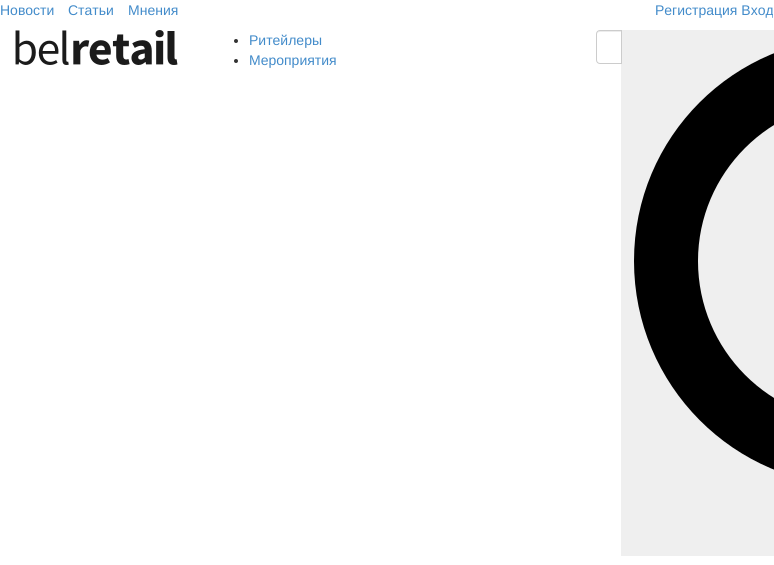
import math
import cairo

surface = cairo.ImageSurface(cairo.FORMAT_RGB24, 774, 565)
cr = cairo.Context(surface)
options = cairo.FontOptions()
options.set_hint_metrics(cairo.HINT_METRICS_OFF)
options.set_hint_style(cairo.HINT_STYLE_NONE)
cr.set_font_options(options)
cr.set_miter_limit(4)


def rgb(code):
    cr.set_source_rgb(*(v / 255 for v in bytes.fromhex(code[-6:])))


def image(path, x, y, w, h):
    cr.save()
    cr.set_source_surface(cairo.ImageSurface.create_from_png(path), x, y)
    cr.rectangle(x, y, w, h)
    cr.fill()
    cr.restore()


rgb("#ffffff")
cr.paint()
image("img/1.png", 15, 30, 163, 35)
rgb("#333333")
cr.arc(236, 41, 2, 0, 2 * math.pi)
cr.fill()
cr.arc(236, 61, 2, 0, 2 * math.pi)
cr.fill()
rgb("#efefef")
cr.rectangle(621, 30, 153, 526)
cr.fill()
rgb("#ffffff")
cr.new_path()
cr.move_to(600, 30)
cr.line_to(622, 30)
cr.line_to(622, 64)
cr.line_to(600, 64)
cr.curve_to(598, 64, 596, 62, 596, 60)
cr.line_to(596, 34)
cr.curve_to(596, 32, 598, 30, 600, 30)
cr.close_path()
cr.fill()
rgb("#ececec")
cr.new_path()
cr.move_to(600, 32)
cr.line_to(621, 32)
cr.line_to(621, 31)
cr.line_to(607, 31)
cr.curve_to(602.5, 31, 597, 29, 597, 35)
cr.curve_to(597, 33, 598, 32, 600, 32)
cr.close_path()
cr.fill()
cr.new_path()
cr.move_to(600, 30.5)
cr.line_to(621.5, 30.5)
cr.line_to(621.5, 63.5)
cr.line_to(600, 63.5)
cr.curve_to(598, 63.5, 596.5, 62, 596.5, 60)
cr.line_to(596.5, 34)
cr.curve_to(596.5, 32, 598, 30.5, 600, 30.5)
cr.close_path()
rgb("#cccccc")
cr.set_line_width(1)
cr.stroke()
rgb("#000000")
cr.new_path()
cr.move_to(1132, 535)
cr.curve_to(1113, 554, 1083, 554, 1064, 535)
cr.line_to(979, 450)
cr.curve_to(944, 472, 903, 486, 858, 486)
cr.curve_to(734, 486, 634, 385, 634, 261)
cr.curve_to(634, 137, 734, 37, 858, 37)
cr.curve_to(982, 37, 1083, 137, 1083, 261)
cr.curve_to(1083, 306, 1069, 347, 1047, 382)
cr.line_to(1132, 467)
cr.curve_to(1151, 486, 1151, 516, 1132, 535)
cr.close_path()
cr.move_to(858, 101)
cr.curve_to(770, 101, 698, 173, 698, 261)
cr.curve_to(698, 350, 770, 422, 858, 422)
cr.curve_to(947, 422, 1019, 350, 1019, 261)
cr.curve_to(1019, 173, 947, 101, 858, 101)
cr.close_path()
cr.fill()
cr.select_font_face("Liberation Sans")
cr.set_font_size(14)
rgb("#428bca")
for x, y, s in [
    (0, 15, "Новости"),
    (68, 15, "Статьи"),
    (128, 15, "Мнения"),
    (655, 15, "Регистрация Вход"),
    (249, 45, "Ритейлеры"),
    (249, 65, "Мероприятия"),
]:
    cr.move_to(x, y)
    cr.show_text(s)
surface.write_to_png("page.png")
